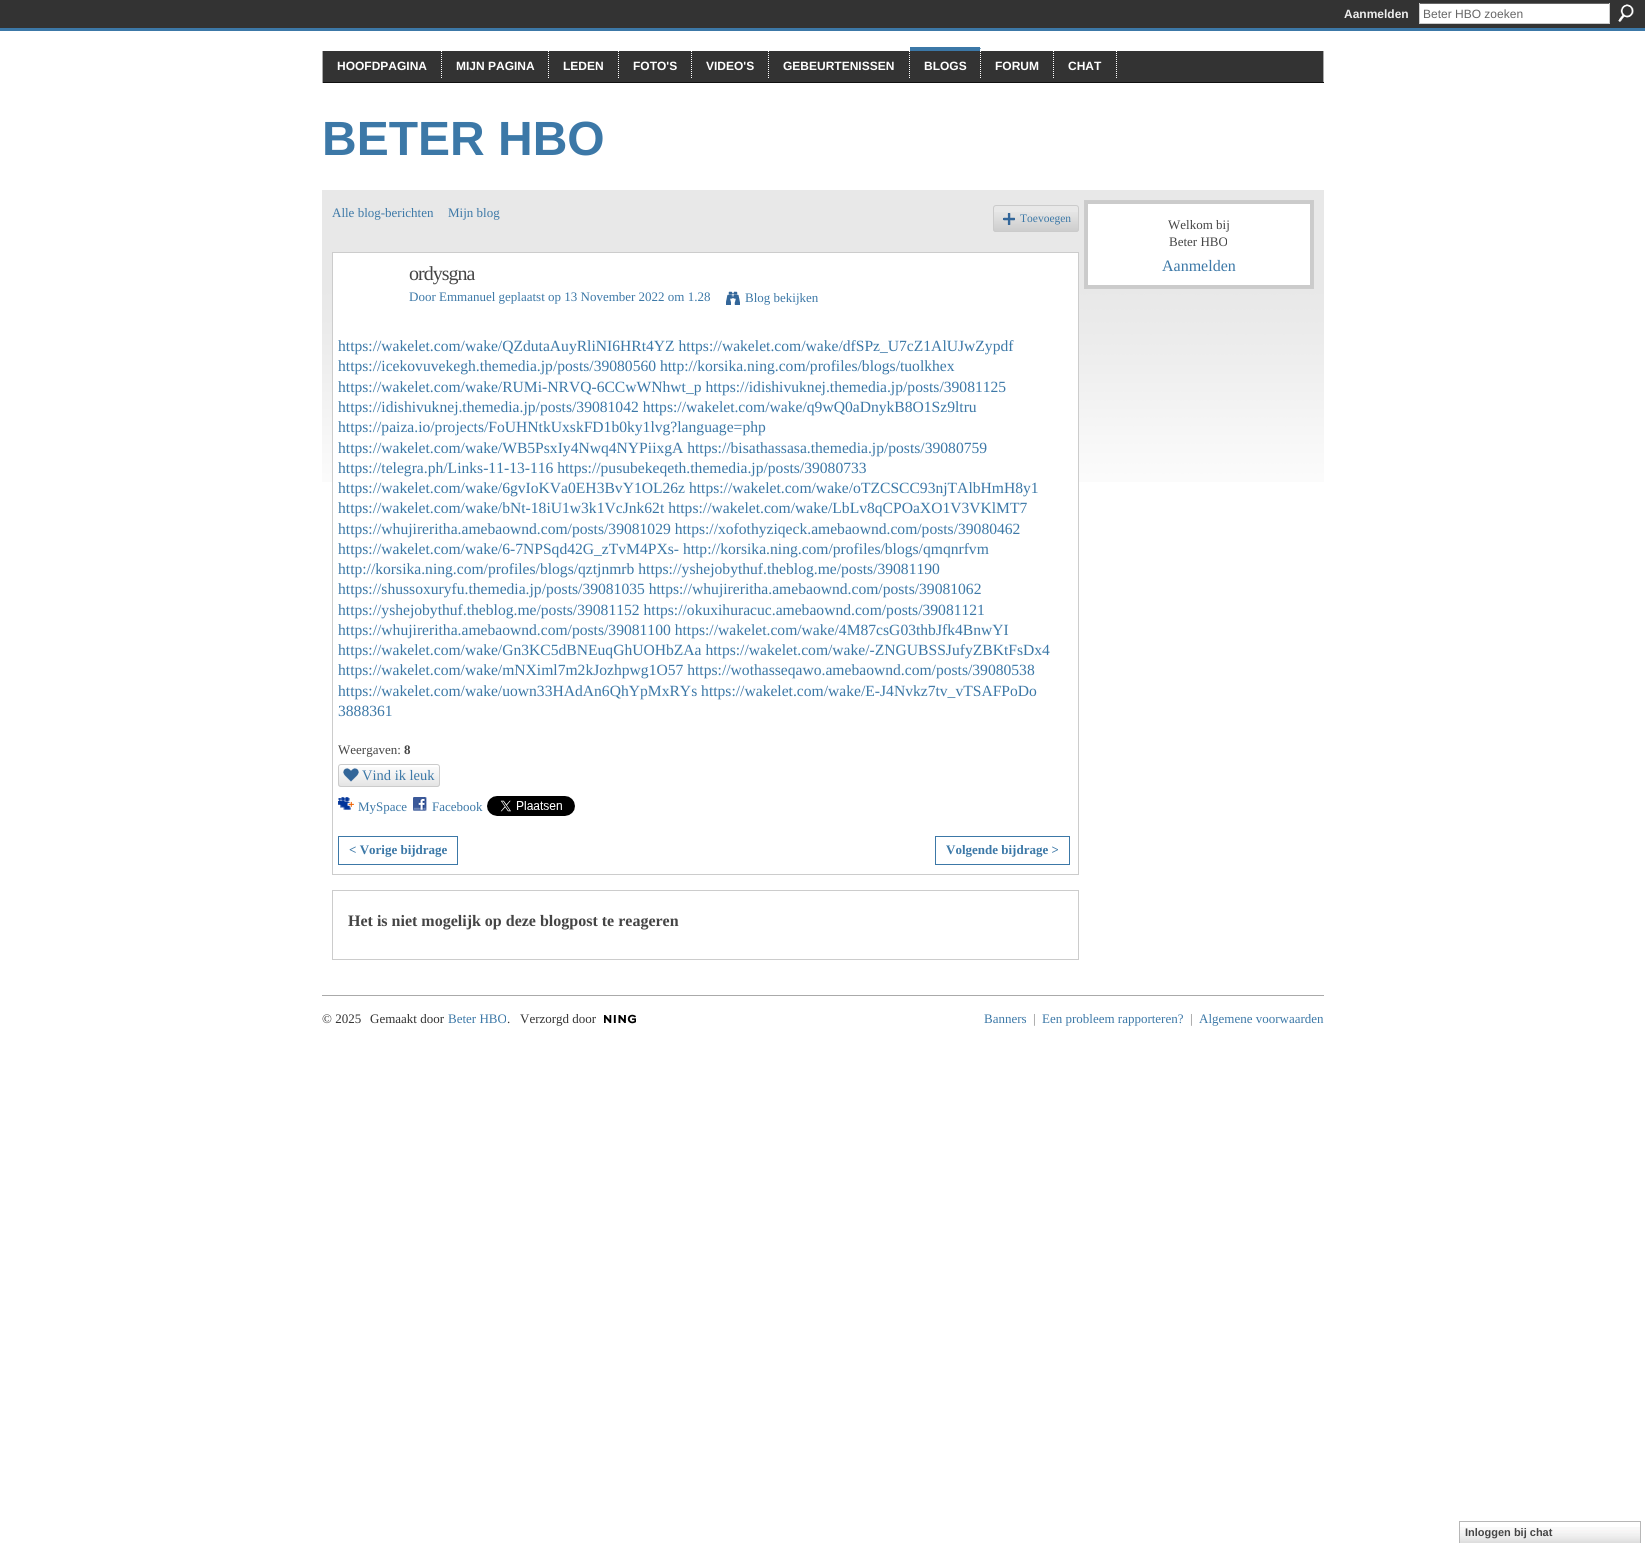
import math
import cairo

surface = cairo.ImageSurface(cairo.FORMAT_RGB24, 1645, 1543)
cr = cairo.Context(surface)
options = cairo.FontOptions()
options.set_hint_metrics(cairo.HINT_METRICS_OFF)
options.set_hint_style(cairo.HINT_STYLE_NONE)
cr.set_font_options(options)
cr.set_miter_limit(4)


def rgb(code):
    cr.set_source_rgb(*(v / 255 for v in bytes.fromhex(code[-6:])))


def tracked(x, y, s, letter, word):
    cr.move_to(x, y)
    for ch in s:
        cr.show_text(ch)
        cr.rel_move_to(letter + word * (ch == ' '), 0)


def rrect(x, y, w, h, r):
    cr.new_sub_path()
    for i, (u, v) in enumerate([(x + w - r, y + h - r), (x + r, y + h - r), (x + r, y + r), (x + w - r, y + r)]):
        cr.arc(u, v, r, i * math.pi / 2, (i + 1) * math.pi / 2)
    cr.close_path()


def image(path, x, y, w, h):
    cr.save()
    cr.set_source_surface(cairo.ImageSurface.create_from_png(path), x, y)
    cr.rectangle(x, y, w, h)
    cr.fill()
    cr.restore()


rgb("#ffffff")
cr.paint()
for x, y, w, h, color in [
    (0, 0, 1645, 28, "#333333"),
    (1420, 4, 189, 19, "#ffffff"),
    (1419, 3, 191, 1, "#666666"),
    (1609, 3, 1, 21, "#cccccc"),
    (1419, 23, 191, 1, "#cccccc"),
    (1419, 3, 1, 21, "#cccccc"),
]:
    rgb(color)
    cr.rectangle(x, y, w, h)
    cr.fill()
image("img/1.png", 1618, 4, 16, 18)
for x, y, w, h, color in [
    (0, 28, 1645, 3, "#3c78a7"),
    (323, 51, 1000, 31, "#333333"),
    (1323, 51, 1, 32, "#aaaaaa"),
    (322, 82, 1002, 1, "#111111"),
    (322, 51, 1, 32, "#aaaaaa"),
]:
    rgb(color)
    cr.rectangle(x, y, w, h)
    cr.fill()
cr.new_path()
cr.move_to(441.5, 47)
cr.line_to(441.5, 78)
rgb("#ffffff")
cr.set_line_width(1)
cr.set_dash([1, 1])
cr.stroke()
cr.new_path()
cr.move_to(548.5, 47)
cr.line_to(548.5, 78)
cr.stroke()
cr.new_path()
cr.move_to(618.5, 47)
cr.line_to(618.5, 78)
cr.stroke()
cr.new_path()
cr.move_to(691.5, 47)
cr.line_to(691.5, 78)
cr.stroke()
cr.new_path()
cr.move_to(768.5, 47)
cr.line_to(768.5, 78)
cr.stroke()
cr.new_path()
cr.move_to(909.5, 47)
cr.line_to(909.5, 78)
cr.stroke()
rgb("#3c78a7")
cr.new_path()
cr.move_to(910, 47)
cr.line_to(981, 47)
cr.line_to(980, 51)
cr.line_to(910, 51)
cr.close_path()
cr.fill()
cr.new_path()
cr.move_to(980.5, 47)
cr.line_to(980.5, 78)
rgb("#ffffff")
cr.stroke()
cr.new_path()
cr.move_to(1053.5, 47)
cr.line_to(1053.5, 78)
cr.stroke()
cr.new_path()
cr.move_to(1116.5, 47)
cr.line_to(1116.5, 78)
cr.stroke()
image("img/2.png", 322, 190, 1002, 292)
image("img/3.png", 993, 212, 86, 20)
rrect(993.5, 205.5, 85, 26, 2.5)
rgb("#cbcbcb")
cr.set_dash([])
cr.stroke()
image("img/4.png", 1003, 213, 12, 12)
rgb("#ffffff")
cr.rectangle(333, 253, 745, 229)
cr.fill()
cr.rectangle(332.5, 252.5, 746, 622)
rgb("#cccccc")
cr.stroke()
image("img/5.png", 726, 291, 14, 14)
image("img/6.png", 338, 767, 102, 20)
rrect(338.5, 764.5, 101, 22, 2.5)
rgb("#cbcbcb")
cr.stroke()
image("img/7.png", 343, 768, 16, 14)
image("img/8.png", 338, 797, 16, 13)
image("img/9.png", 413, 797, 14, 14)
image("img/10.png", 487, 796, 88, 20)
cr.rectangle(338.5, 836.5, 119, 28)
rgb("#3c78a7")
cr.stroke()
cr.rectangle(935.5, 836.5, 134, 28)
cr.stroke()
cr.rectangle(332.5, 890.5, 746, 69)
rgb("#cccccc")
cr.stroke()
rgb("#ffffff")
cr.rectangle(1088, 204, 222, 81)
cr.fill()
cr.rectangle(1084.5, 200.5, 229, 88)
rgb("#cccccc")
cr.stroke()
cr.rectangle(1086.5, 202.5, 225, 84)
rgb("#cbcbcb")
cr.set_line_width(3)
cr.stroke()
rgb("#aaaaaa")
cr.rectangle(322, 995, 1002, 1)
cr.fill()
image("img/11.png", 604, 1014, 32, 10)
image("img/12.png", 1460, 1527, 180, 16)
cr.rectangle(1459.5, 1521.5, 181, 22)
rgb("#b7b7b7")
cr.set_line_width(1)
cr.stroke()
cr.select_font_face("Liberation Sans", cairo.FONT_SLANT_NORMAL, cairo.FONT_WEIGHT_BOLD)
cr.set_font_size(12)
rgb("#eeeeee")
cr.move_to(1344, 18)
cr.show_text("Aanmelden")
cr.select_font_face("Liberation Sans")
rgb("#666666")
cr.move_to(1423, 18)
cr.show_text("Beter HBO zoeken")
cr.select_font_face("Liberation Sans", cairo.FONT_SLANT_NORMAL, cairo.FONT_WEIGHT_BOLD)
rgb("#ffffff")
for x, y, s in [
    (337, 70, "HOOFDPAGINA"),
    (456, 70, "MIJN PAGINA"),
    (563, 70, "LEDEN"),
    (633, 70, "FOTO'S"),
    (706, 70, "VIDEO'S"),
    (783, 70, "GEBEURTENISSEN"),
    (924, 70, "BLOGS"),
    (995, 70, "FORUM"),
    (1068, 70, "CHAT"),
]:
    cr.move_to(x, y)
    cr.show_text(s)
cr.set_font_size(48)
rgb("#3c78a7")
cr.move_to(322, 155)
cr.show_text("BETER HBO")
cr.select_font_face("Liberation Serif")
cr.set_font_size(13)
cr.move_to(332, 217)
cr.show_text("Alle blog-berichten")
cr.move_to(448, 217)
cr.show_text("Mijn blog")
cr.set_font_size(11.5)
cr.move_to(1020, 222)
cr.show_text("Toevoegen")
cr.set_font_size(20)
rgb("#454545")
tracked(409, 280, "ordysgna", -1, 0)
cr.set_font_size(13)
rgb("#3c78a7")
cr.move_to(409, 301)
cr.show_text("Door Emmanuel geplaatst op 13 November 2022 om 1.28")
cr.move_to(745, 302)
cr.show_text("Blog bekijken")
cr.set_font_size(15.6)
for x, y, s in [
    (338, 351, "https://wakelet.com/wake/QZdutaAuyRliNI6HRt4YZ https://wakelet.com/wake/dfSPz_U7cZ1AlUJwZypdf"),
    (338, 371, "https://icekovuvekegh.themedia.jp/posts/39080560 http://korsika.ning.com/profiles/blogs/tuolkhex"),
    (338, 392, "https://wakelet.com/wake/RUMi-NRVQ-6CCwWNhwt_p https://idishivuknej.themedia.jp/posts/39081125"),
    (338, 412, "https://idishivuknej.themedia.jp/posts/39081042 https://wakelet.com/wake/q9wQ0aDnykB8O1Sz9ltru"),
    (338, 432, "https://paiza.io/projects/FoUHNtkUxskFD1b0ky1lvg?language=php"),
    (338, 453, "https://wakelet.com/wake/WB5PsxIy4Nwq4NYPiixgA https://bisathassasa.themedia.jp/posts/39080759"),
    (338, 473, "https://telegra.ph/Links-11-13-116 https://pusubekeqeth.themedia.jp/posts/39080733"),
    (338, 493, "https://wakelet.com/wake/6gvIoKVa0EH3BvY1OL26z https://wakelet.com/wake/oTZCSCC93njTAlbHmH8y1"),
    (338, 513, "https://wakelet.com/wake/bNt-18iU1w3k1VcJnk62t https://wakelet.com/wake/LbLv8qCPOaXO1V3VKlMT7"),
    (338, 534, "https://whujireritha.amebaownd.com/posts/39081029 https://xofothyziqeck.amebaownd.com/posts/39080462"),
    (338, 554, "https://wakelet.com/wake/6-7NPSqd42G_zTvM4PXs- http://korsika.ning.com/profiles/blogs/qmqnrfvm"),
    (338, 574, "http://korsika.ning.com/profiles/blogs/qztjnmrb https://yshejobythuf.theblog.me/posts/39081190"),
    (338, 594, "https://shussoxuryfu.themedia.jp/posts/39081035 https://whujireritha.amebaownd.com/posts/39081062"),
    (338, 615, "https://yshejobythuf.theblog.me/posts/39081152 https://okuxihuracuc.amebaownd.com/posts/39081121"),
    (338, 635, "https://whujireritha.amebaownd.com/posts/39081100 https://wakelet.com/wake/4M87csG03thbJfk4BnwYI"),
    (338, 655, "https://wakelet.com/wake/Gn3KC5dBNEuqGhUOHbZAa https://wakelet.com/wake/-ZNGUBSSJufyZBKtFsDx4"),
    (338, 675, "https://wakelet.com/wake/mNXiml7m2kJozhpwg1O57 https://wothasseqawo.amebaownd.com/posts/39080538"),
    (338, 696, "https://wakelet.com/wake/uown33HAdAn6QhYpMxRYs https://wakelet.com/wake/E-J4Nvkz7tv_vTSAFPoDo"),
    (338, 716, "3888361"),
]:
    cr.move_to(x, y)
    cr.show_text(s)
cr.set_font_size(13)
rgb("#454545")
cr.move_to(338, 754)
cr.show_text("Weergaven:")
cr.select_font_face("Liberation Serif", cairo.FONT_SLANT_NORMAL, cairo.FONT_WEIGHT_BOLD)
cr.move_to(404, 754)
cr.show_text("8")
cr.select_font_face("Liberation Serif")
cr.set_font_size(14.5)
rgb("#3c78a7")
cr.move_to(362, 780)
cr.show_text("Vind ik leuk")
cr.set_font_size(13)
cr.move_to(358, 811)
cr.show_text("MySpace")
cr.move_to(432, 811)
cr.show_text("Facebook")
cr.select_font_face("Liberation Serif", cairo.FONT_SLANT_NORMAL, cairo.FONT_WEIGHT_BOLD)
cr.move_to(349, 854)
cr.show_text("< Vorige bijdrage")
cr.move_to(946, 854)
cr.show_text("Volgende bijdrage >")
cr.set_font_size(16)
rgb("#454545")
cr.move_to(348, 926)
cr.show_text("Het is niet mogelijk op deze blogpost te reageren")
cr.select_font_face("Liberation Serif")
cr.set_font_size(13)
cr.move_to(1168, 229)
cr.show_text("Welkom bij")
cr.move_to(1169, 246)
cr.show_text("Beter HBO")
cr.set_font_size(16)
rgb("#3c78a7")
cr.move_to(1162, 271)
cr.show_text("Aanmelden")
cr.set_font_size(13)
rgb("#333333")
cr.move_to(322, 1023)
cr.show_text("© 2025")
cr.move_to(370, 1023)
cr.show_text("Gemaakt door")
rgb("#3c78a7")
cr.move_to(448, 1023)
cr.show_text("Beter HBO")
rgb("#333333")
cr.move_to(507, 1023)
cr.show_text(".")
cr.move_to(520, 1023)
cr.show_text("Verzorgd door")
rgb("#3c78a7")
cr.move_to(984, 1023)
cr.show_text("Banners")
rgb("#7f7f7f")
cr.move_to(1033, 1023)
cr.show_text("|")
rgb("#3c78a7")
cr.move_to(1042, 1023)
cr.show_text("Een probleem rapporteren?")
rgb("#7f7f7f")
cr.move_to(1190, 1023)
cr.show_text("|")
rgb("#3c78a7")
cr.move_to(1199, 1023)
cr.show_text("Algemene voorwaarden")
cr.select_font_face("Liberation Sans", cairo.FONT_SLANT_NORMAL, cairo.FONT_WEIGHT_BOLD)
cr.set_font_size(11)
rgb("#454545")
cr.move_to(1465, 1536)
cr.show_text("Inloggen bij chat")
surface.write_to_png("page.png")
